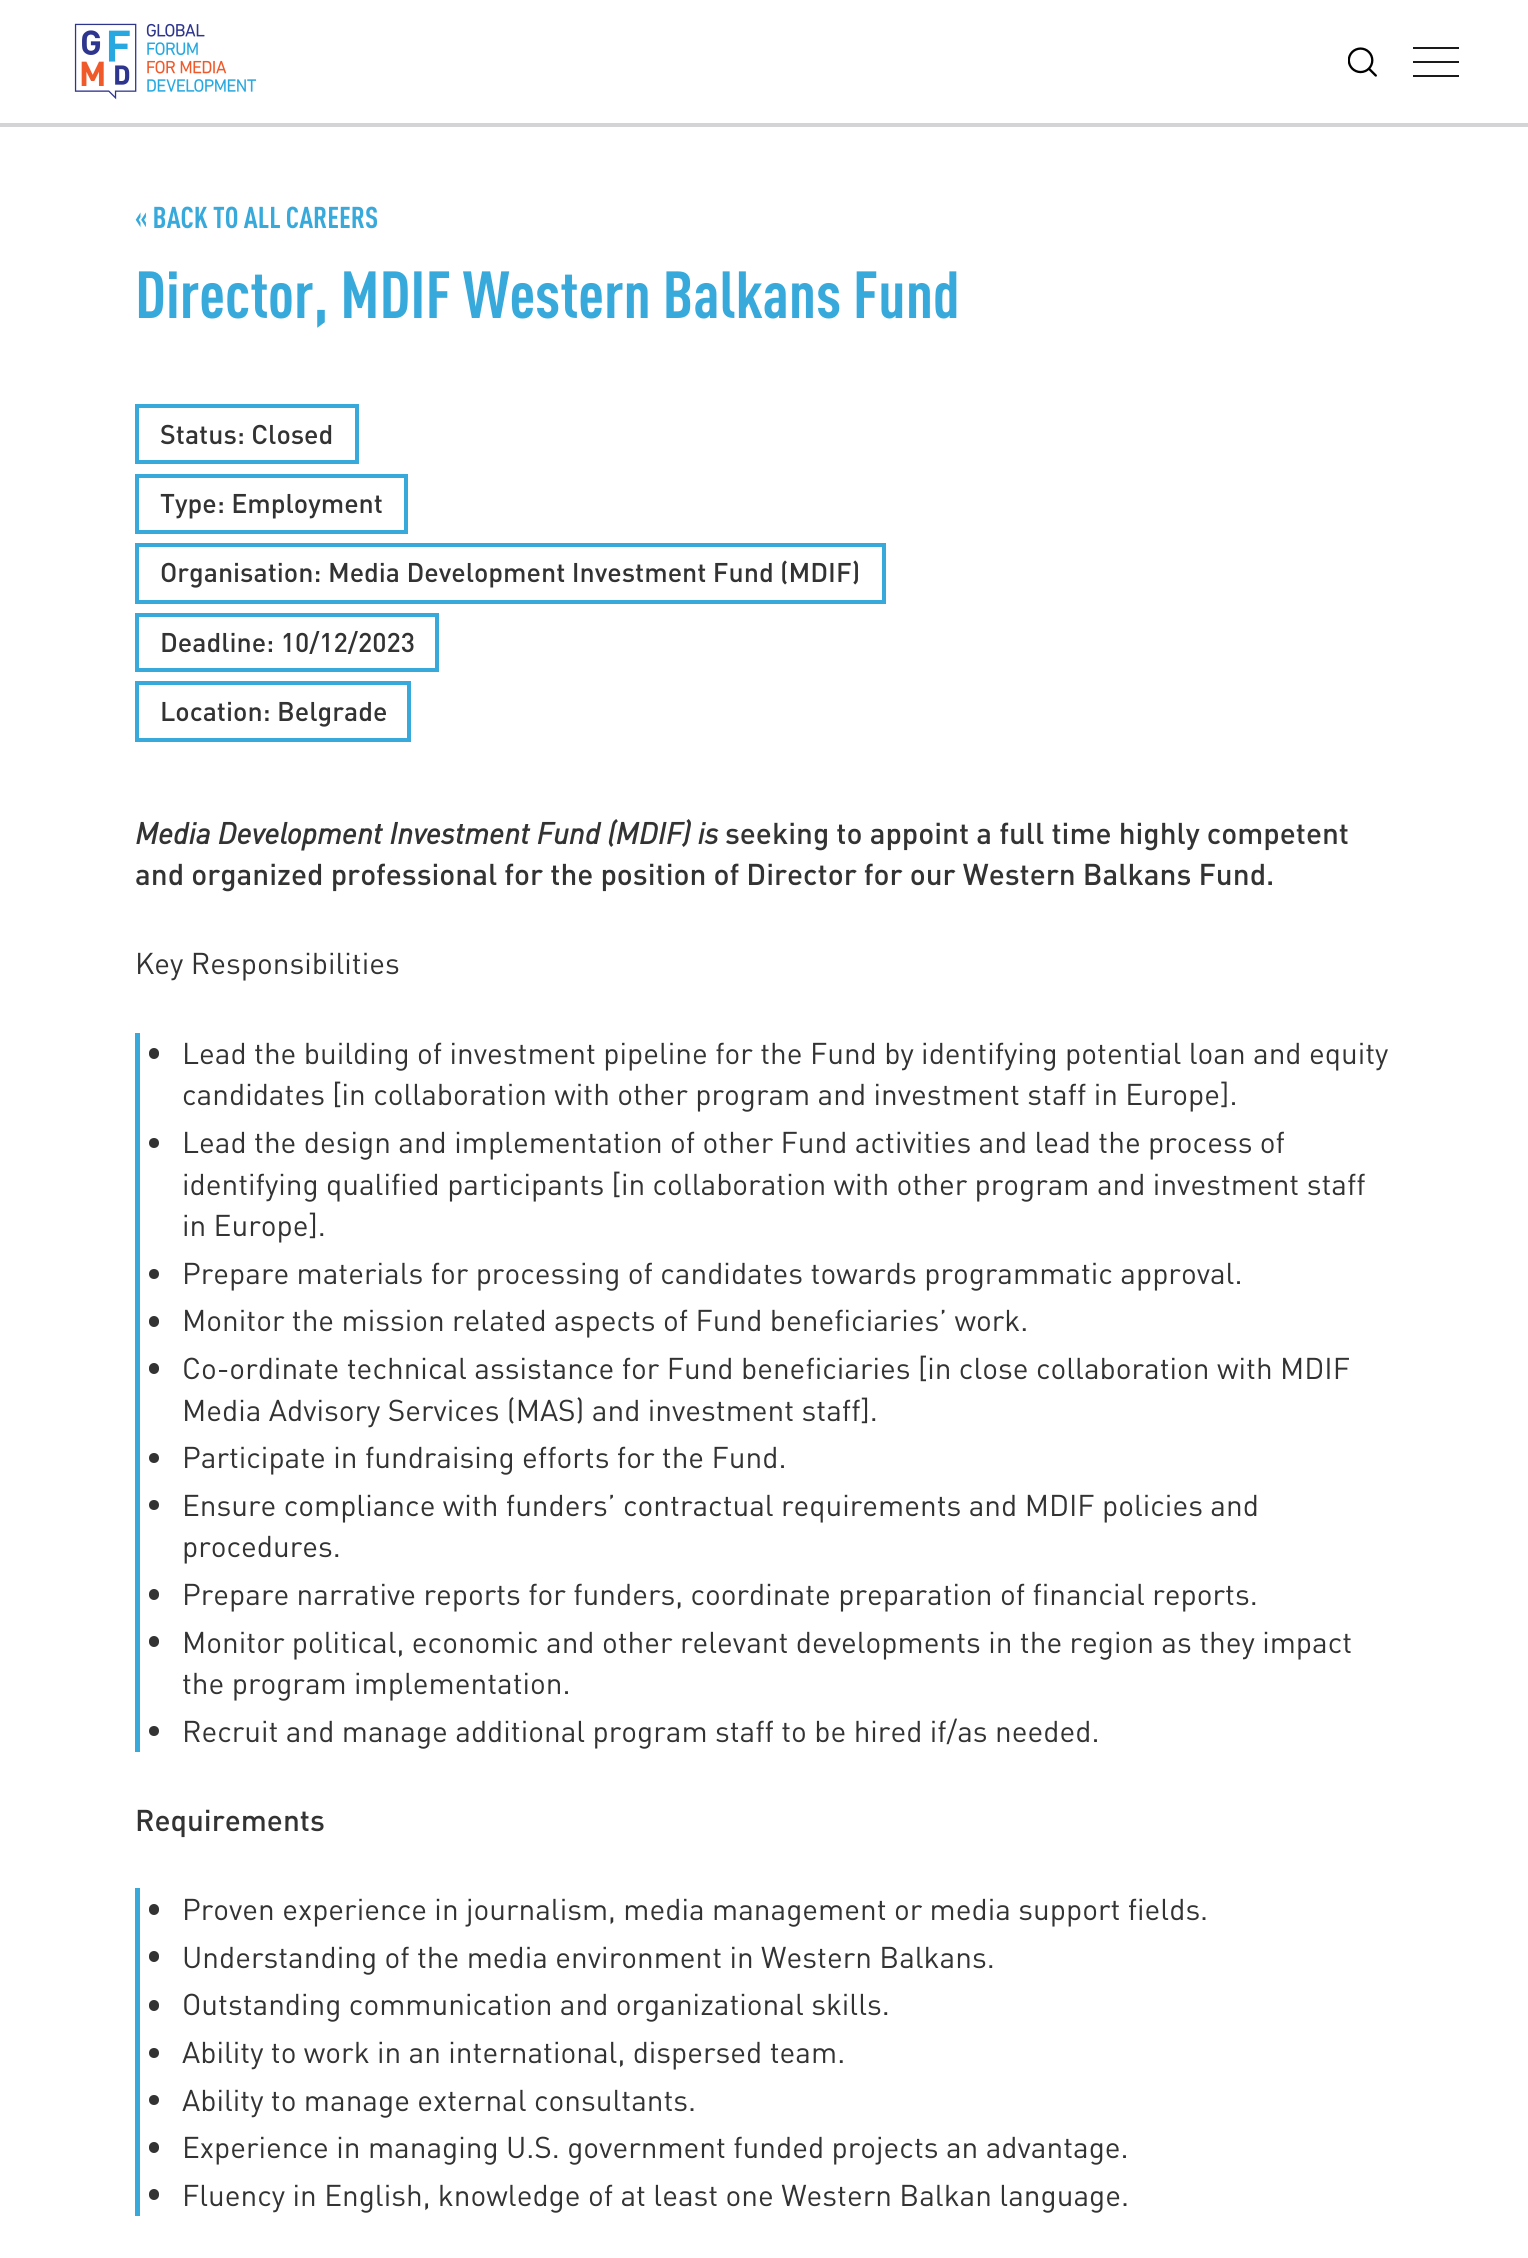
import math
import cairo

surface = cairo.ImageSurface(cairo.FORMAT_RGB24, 1528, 2258)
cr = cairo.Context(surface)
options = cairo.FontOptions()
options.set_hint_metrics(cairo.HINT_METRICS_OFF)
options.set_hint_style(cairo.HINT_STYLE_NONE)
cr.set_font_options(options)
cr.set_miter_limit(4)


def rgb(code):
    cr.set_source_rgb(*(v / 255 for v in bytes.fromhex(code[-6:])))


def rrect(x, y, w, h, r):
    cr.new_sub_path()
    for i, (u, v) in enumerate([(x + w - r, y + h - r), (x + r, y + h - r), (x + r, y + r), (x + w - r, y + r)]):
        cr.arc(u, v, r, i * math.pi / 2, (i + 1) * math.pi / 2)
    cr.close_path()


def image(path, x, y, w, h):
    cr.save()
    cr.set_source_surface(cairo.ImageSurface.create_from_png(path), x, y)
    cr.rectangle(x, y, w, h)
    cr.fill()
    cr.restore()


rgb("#ffffff")
cr.paint()
rgb("#d4d3d6")
cr.rectangle(0, 123, 1528, 4)
cr.fill()
image("img/1.png", 74, 23, 183, 77)
image("img/2.png", 1348, 47, 29, 30)
for x, y, w, h, color in [
    (1413, 47, 46, 2, "#1a1a1a"),
    (1413, 61, 46, 2, "#1a1a1a"),
    (1413, 75, 46, 2, "#1a1a1a"),
]:
    rgb(color)
    cr.rectangle(x, y, w, h)
    cr.fill()
cr.rectangle(137, 406, 220, 56)
rgb("#38a9db")
cr.set_line_width(4)
cr.stroke()
cr.rectangle(137, 476, 269, 56)
cr.stroke()
cr.rectangle(137, 545, 747, 57)
cr.stroke()
cr.rectangle(137, 615, 300, 55)
cr.stroke()
cr.rectangle(137, 683, 272, 57)
cr.stroke()
cr.rectangle(135, 1033, 5, 719)
cr.fill()
rgb("#333333")
rrect(149, 1048, 10, 11, 5)
cr.fill()
cr.arc(154, 1143, 5, 0, 2 * math.pi)
cr.fill()
cr.arc(154, 1274, 5, 0, 2 * math.pi)
cr.fill()
rrect(149, 1316, 10, 11, 5)
cr.fill()
rrect(149, 1363, 10, 11, 5)
cr.fill()
cr.arc(154, 1458, 5, 0, 2 * math.pi)
cr.fill()
cr.arc(154, 1505, 5, 0, 2 * math.pi)
cr.fill()
rrect(149, 1589, 10, 11, 5)
cr.fill()
rrect(149, 1636, 10, 11, 5)
cr.fill()
cr.arc(154, 1731, 5, 0, 2 * math.pi)
cr.fill()
rgb("#38a9db")
cr.rectangle(135, 1888, 5, 328)
cr.fill()
rgb("#333333")
rrect(149, 1904, 10, 11, 5)
cr.fill()
rrect(149, 1951, 10, 11, 5)
cr.fill()
rrect(149, 2000, 10, 11, 5)
cr.fill()
cr.arc(154, 2053, 5, 0, 2 * math.pi)
cr.fill()
cr.arc(154, 2100, 5, 0, 2 * math.pi)
cr.fill()
rrect(149, 2142, 10, 11, 5)
cr.fill()
rrect(149, 2189, 10, 11, 5)
cr.fill()
cr.select_font_face("DIN", cairo.FONT_SLANT_NORMAL, cairo.FONT_WEIGHT_BOLD)
cr.set_font_size(29.75)
rgb("#38a9db")
cr.move_to(135, 228)
cr.show_text("« BACK TO ALL CAREERS")
cr.set_font_size(65.5)
cr.move_to(135, 318)
cr.show_text("Director, MDIF Western Balkans Fund")
cr.select_font_face("DIN Medium")
cr.set_font_size(26.75)
rgb("#333333")
for x, y, s in [
    (160, 444, "Status: Closed"),
    (160, 513, "Type: Employment"),
    (160, 582, "Organisation: Media Development Investment Fund (MDIF)"),
    (160, 652, "Deadline: 10/12/2023"),
    (160, 721, "Location: Belgrade"),
]:
    cr.move_to(x, y)
    cr.show_text(s)
cr.select_font_face("DIN", cairo.FONT_SLANT_ITALIC, cairo.FONT_WEIGHT_BOLD)
cr.set_font_size(29.75)
cr.move_to(135, 844)
cr.show_text("Media Development Investment Fund (MDIF) is")
cr.select_font_face("DIN Medium")
cr.move_to(725, 844)
cr.show_text("seeking to appoint a full time highly competent")
cr.move_to(135, 885)
cr.show_text("and organized professional for the position of Director for our Western Balkans Fund.")
cr.select_font_face("DIN")
for x, y, s in [
    (135, 974, "Key Responsibilities"),
    (182, 1064, "Lead the building of investment pipeline for the Fund by identifying potential loan and equity"),
    (182, 1105, "candidates [in collaboration with other program and investment staff in Europe]."),
    (182, 1153, "Lead the design and implementation of other Fund activities and lead the process of"),
    (182, 1195, "identifying qualified participants [in collaboration with other program and investment staff"),
    (182, 1236, "in Europe]."),
    (182, 1284, "Prepare materials for processing of candidates towards programmatic approval."),
    (182, 1331, "Monitor the mission related aspects of Fund beneficiaries’ work."),
    (182, 1379, "Co-ordinate technical assistance for Fund beneficiaries [in close collaboration with MDIF"),
    (182, 1421, "Media Advisory Services (MAS) and investment staff]."),
    (182, 1468, "Participate in fundraising efforts for the Fund."),
    (182, 1516, "Ensure compliance with funders’ contractual requirements and MDIF policies and"),
    (182, 1557, "procedures."),
    (182, 1605, "Prepare narrative reports for funders, coordinate preparation of financial reports."),
    (182, 1653, "Monitor political, economic and other relevant developments in the region as they impact"),
    (182, 1694, "the program implementation."),
    (182, 1742, "Recruit and manage additional program staff to be hired if/as needed."),
]:
    cr.move_to(x, y)
    cr.show_text(s)
cr.select_font_face("DIN Medium")
cr.move_to(135, 1831)
cr.show_text("Requirements")
cr.select_font_face("DIN")
for x, y, s in [
    (182, 1920, "Proven experience in journalism, media management or media support fields."),
    (182, 1968, "Understanding of the media environment in Western Balkans."),
    (182, 2015, "Outstanding communication and organizational skills."),
    (182, 2063, "Ability to work in an international, dispersed team."),
    (182, 2111, "Ability to manage external consultants."),
    (182, 2158, "Experience in managing U.S. government funded projects an advantage."),
    (182, 2206, "Fluency in English, knowledge of at least one Western Balkan language."),
]:
    cr.move_to(x, y)
    cr.show_text(s)
surface.write_to_png("page.png")
